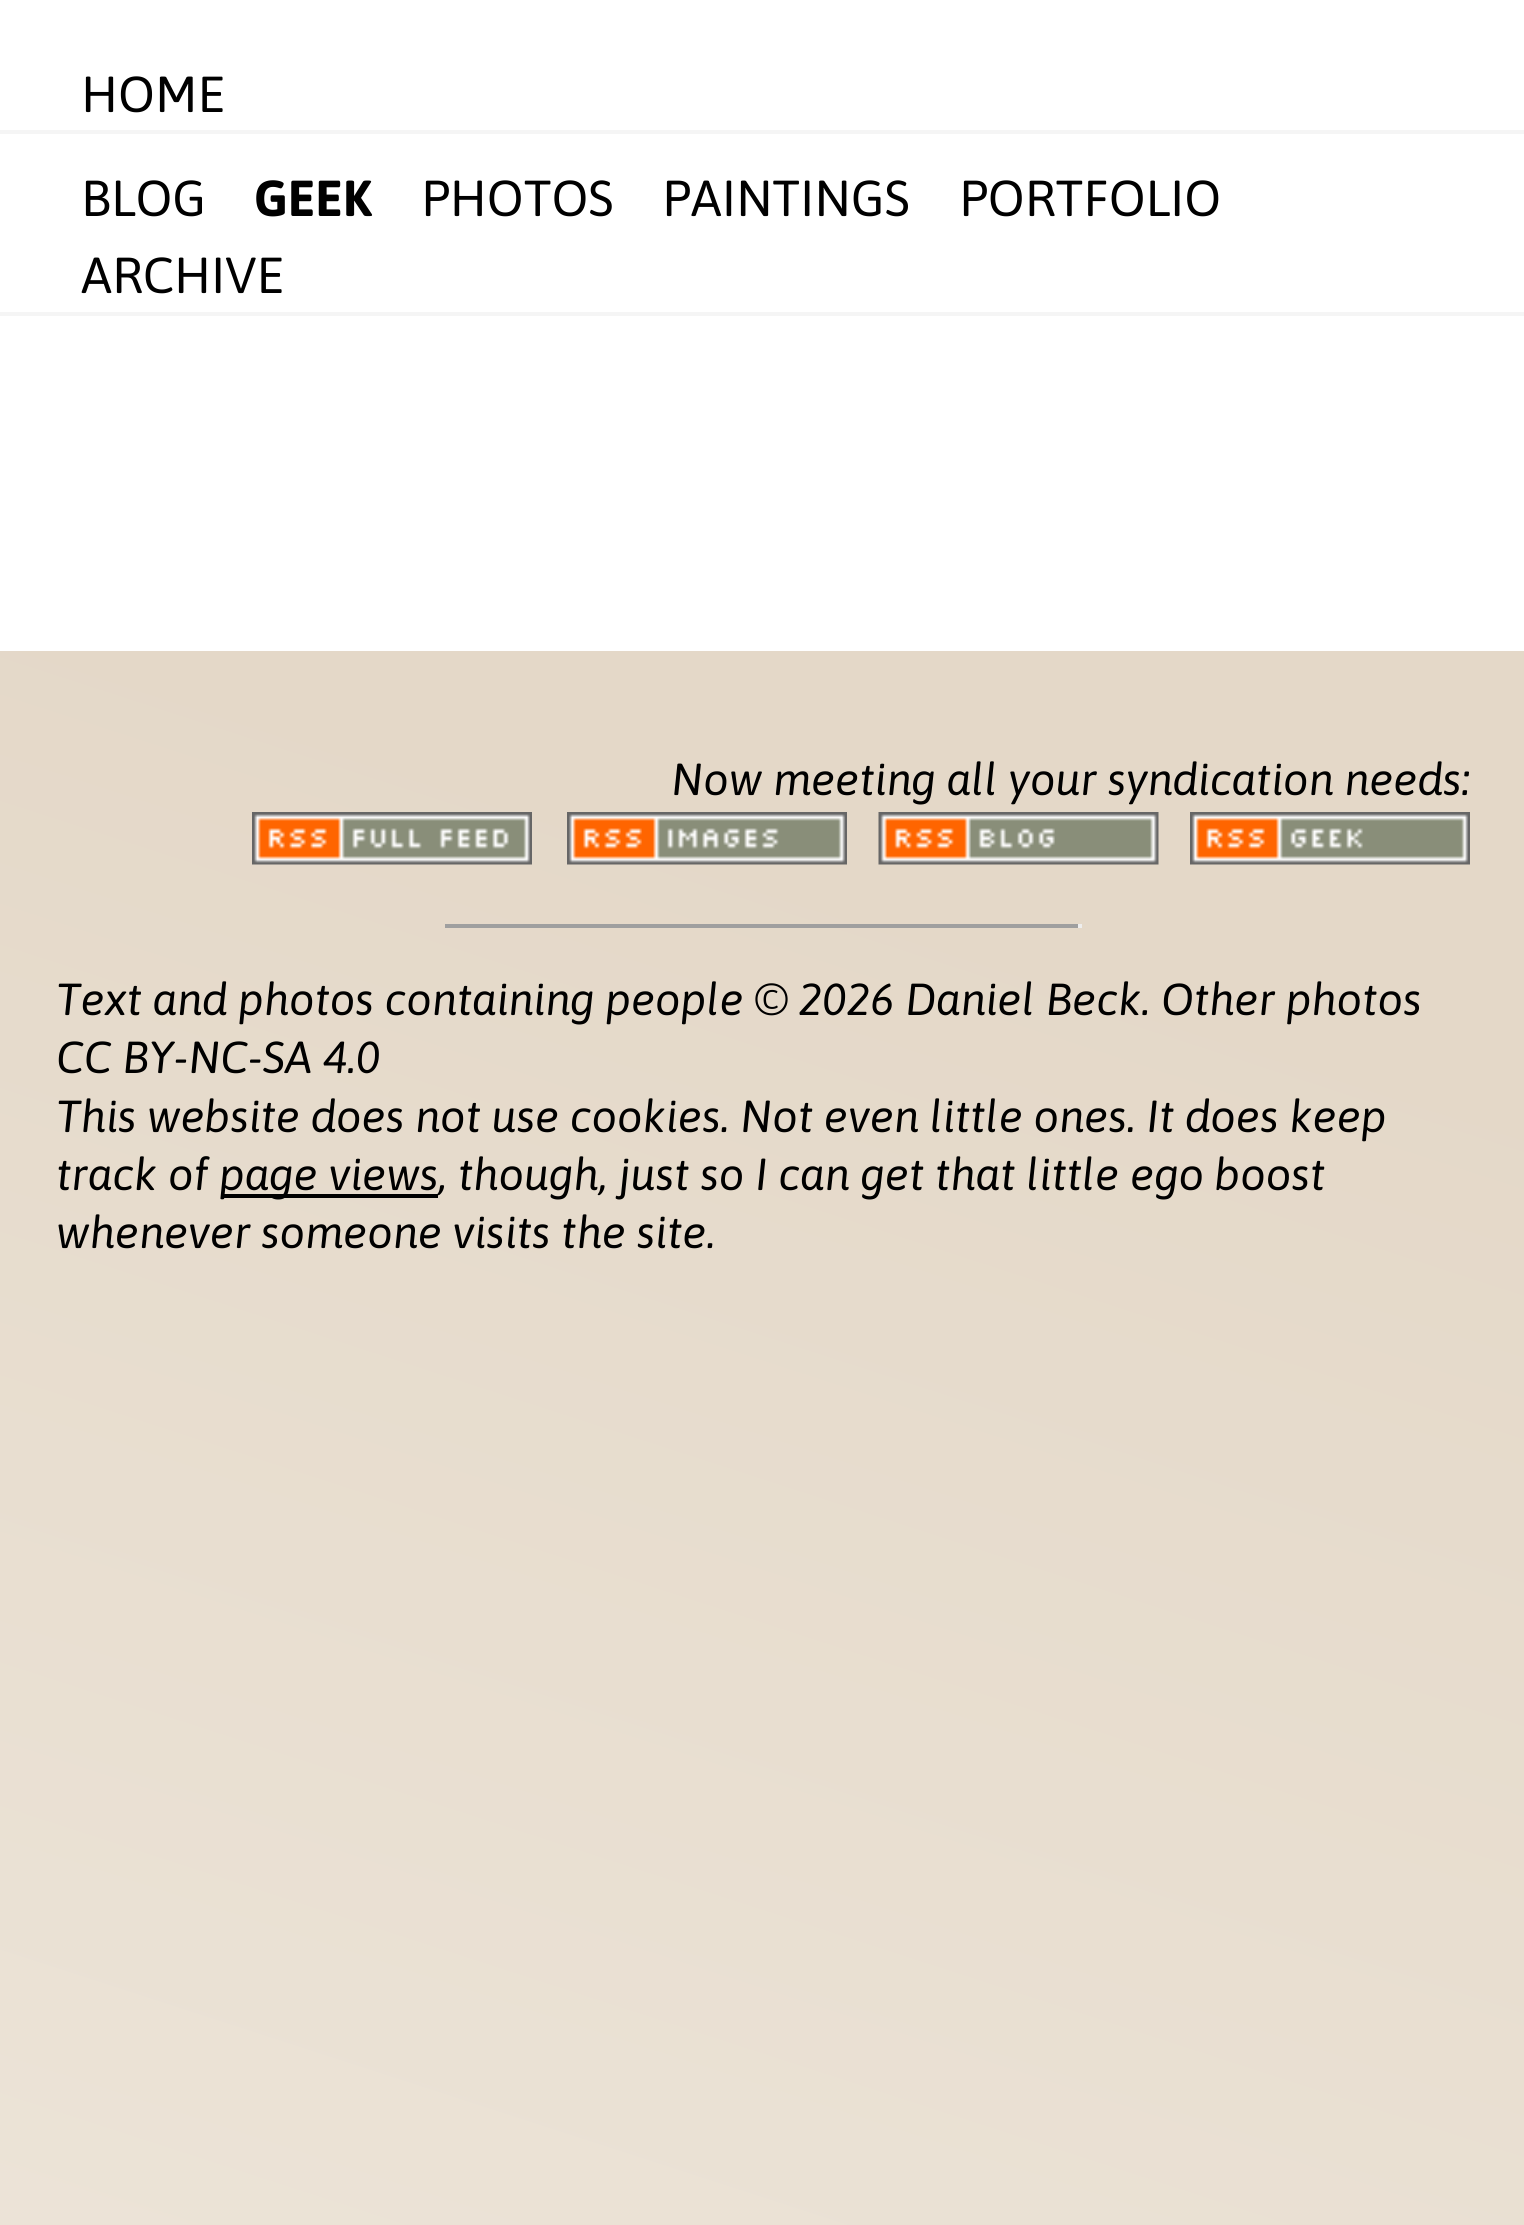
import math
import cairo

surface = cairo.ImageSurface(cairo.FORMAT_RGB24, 1524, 2225)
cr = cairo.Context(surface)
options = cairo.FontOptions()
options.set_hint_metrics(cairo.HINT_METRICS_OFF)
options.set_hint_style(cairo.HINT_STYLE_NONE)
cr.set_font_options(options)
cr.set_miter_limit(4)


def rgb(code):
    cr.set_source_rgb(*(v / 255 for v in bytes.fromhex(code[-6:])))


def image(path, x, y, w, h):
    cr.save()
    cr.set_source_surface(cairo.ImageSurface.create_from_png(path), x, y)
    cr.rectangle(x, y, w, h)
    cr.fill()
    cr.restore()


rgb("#ffffff")
cr.paint()
rgb("#f5f5f5")
cr.rectangle(0, 130, 1524, 4)
cr.fill()
cr.rectangle(0, 312, 1524, 4)
cr.fill()
gradient = cairo.LinearGradient(192, 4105, 1334, 589)
gradient.add_color_stop_rgba(0.08, 0.953, 0.933, 0.898, 1)
gradient.add_color_stop_rgba(0.89, 0.894, 0.847, 0.784, 1)
cr.set_source(gradient)
cr.rectangle(0, 651, 1524, 1574)
cr.fill()
image("img/1.png", 252, 812, 280, 53)
image("img/2.png", 567, 812, 280, 53)
image("img/3.png", 878, 812, 281, 53)
image("img/4.png", 1190, 812, 280, 53)
for x, y, w, h, color in [
    (445, 924, 637, 4, "#9f9f9f"),
    (1078, 924, 4, 4, "#eeeeee"),
    (221, 1194, 217, 4, "#000000"),
]:
    rgb(color)
    cr.rectangle(x, y, w, h)
    cr.fill()
cr.select_font_face("Asap")
cr.set_font_size(50.5)
cr.move_to(81, 112)
cr.show_text("HOME")
cr.move_to(81, 216)
cr.show_text("BLOG")
cr.select_font_face("Asap", cairo.FONT_SLANT_NORMAL, cairo.FONT_WEIGHT_BOLD)
cr.move_to(254, 216)
cr.show_text("GEEK")
cr.select_font_face("Asap")
for x, y, s in [
    (421, 216, "PHOTOS"),
    (662, 216, "PAINTINGS"),
    (959, 216, "PORTFOLIO"),
    (81, 293, "ARCHIVE"),
]:
    cr.move_to(x, y)
    cr.show_text(s)
cr.select_font_face("Asap", cairo.FONT_SLANT_ITALIC)
cr.set_font_size(44.8)
for x, y, s in [
    (671, 795, "Now meeting all your syndication needs:"),
    (56, 1015, "Text and photos containing people © 2026 Daniel Beck. Other photos"),
    (56, 1073, "CC BY-NC-SA 4.0"),
    (56, 1132, "This website does not use cookies. Not even little ones. It does keep"),
    (56, 1190, "track of"),
    (219, 1190, "page views, though, just so I can get that little ego boost"),
    (56, 1248, "whenever someone visits the site."),
]:
    cr.move_to(x, y)
    cr.show_text(s)
surface.write_to_png("page.png")
